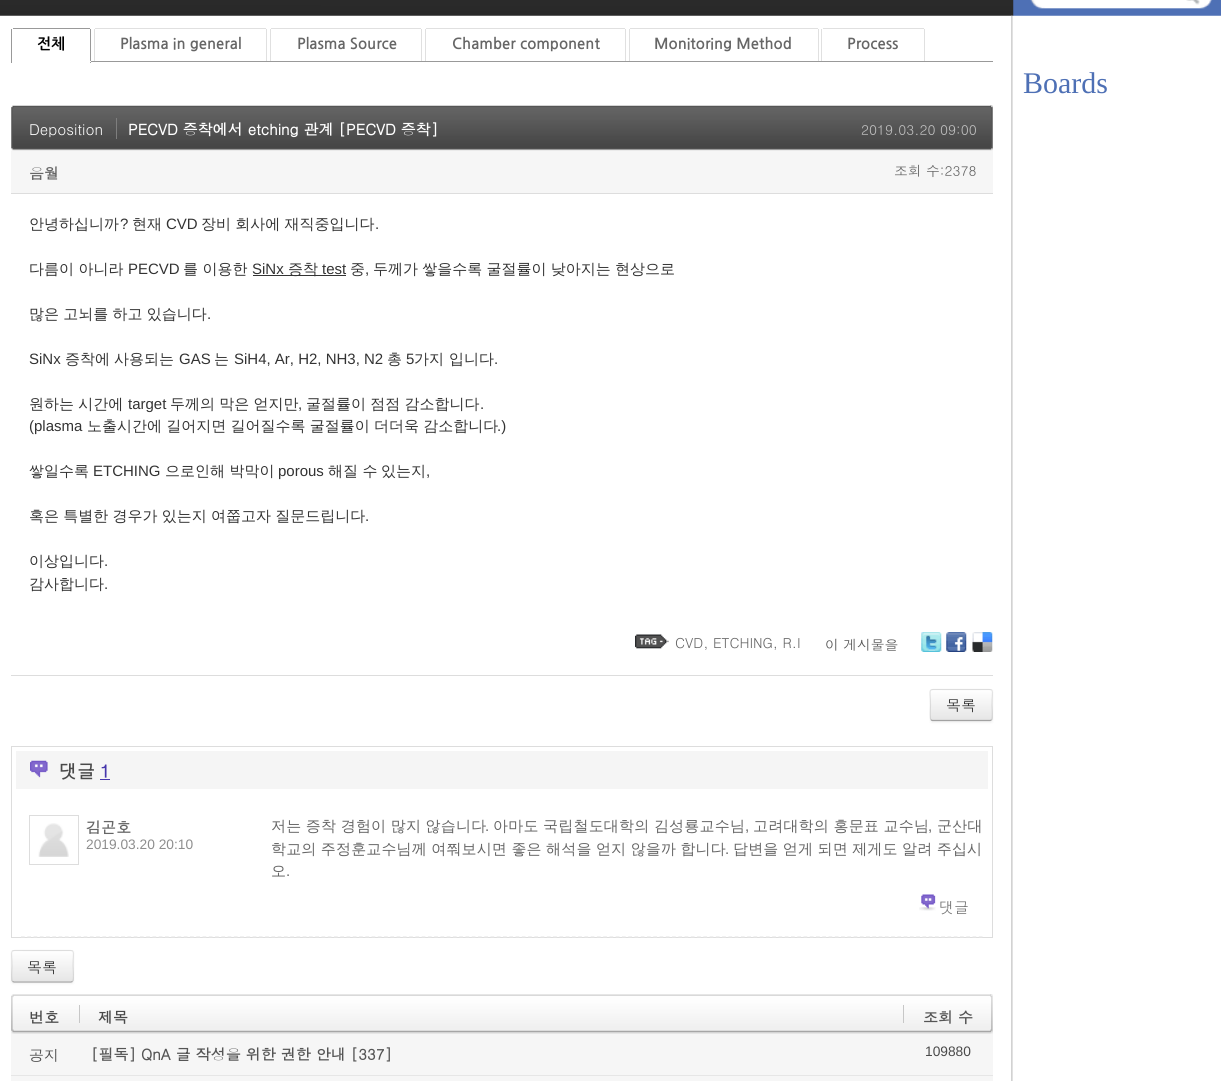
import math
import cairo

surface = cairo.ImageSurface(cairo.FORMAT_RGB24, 1221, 1081)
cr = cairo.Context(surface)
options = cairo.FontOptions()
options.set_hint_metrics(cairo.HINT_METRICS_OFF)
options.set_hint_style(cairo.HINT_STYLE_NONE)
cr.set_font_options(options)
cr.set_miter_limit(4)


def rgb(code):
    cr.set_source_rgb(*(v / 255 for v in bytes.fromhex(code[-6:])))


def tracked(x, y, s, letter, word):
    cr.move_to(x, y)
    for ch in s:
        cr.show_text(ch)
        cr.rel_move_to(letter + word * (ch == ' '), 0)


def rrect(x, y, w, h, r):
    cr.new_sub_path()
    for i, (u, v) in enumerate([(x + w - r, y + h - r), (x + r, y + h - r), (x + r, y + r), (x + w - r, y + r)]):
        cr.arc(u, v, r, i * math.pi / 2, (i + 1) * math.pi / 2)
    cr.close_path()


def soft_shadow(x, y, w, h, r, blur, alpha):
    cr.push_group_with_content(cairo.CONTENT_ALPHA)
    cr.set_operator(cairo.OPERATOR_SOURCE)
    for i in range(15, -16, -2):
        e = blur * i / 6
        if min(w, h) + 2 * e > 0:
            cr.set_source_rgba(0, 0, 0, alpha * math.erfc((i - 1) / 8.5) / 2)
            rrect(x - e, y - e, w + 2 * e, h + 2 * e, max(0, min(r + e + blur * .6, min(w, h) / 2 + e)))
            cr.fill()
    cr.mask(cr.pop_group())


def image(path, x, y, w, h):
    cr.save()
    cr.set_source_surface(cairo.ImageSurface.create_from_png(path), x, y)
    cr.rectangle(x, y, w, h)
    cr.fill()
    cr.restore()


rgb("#ffffff")
cr.paint()
image("img/1.png", 0, 0, 1221, 16)
image("img/2.png", 1186, 0, 14, 5)
image("img/3.png", 1011, 15, 2, 1066)
for x, y, w, h, color in [
    (91, 61, 902, 1, "#999999"),
    (90, 29, 1, 34, "#999999"),
    (90, 61, 1, 1, "#ffffff"),
    (11, 29, 1, 34, "#999999"),
    (13, 28, 77, 1, "#999999"),
    (266, 29, 1, 32, "#e0e0e0"),
    (94, 29, 1, 32, "#e0e0e0"),
    (95, 28, 171, 1, "#e0e0e0"),
    (421, 29, 1, 32, "#e0e0e0"),
    (270, 29, 1, 32, "#e0e0e0"),
    (271, 28, 150, 1, "#e0e0e0"),
    (625, 29, 1, 32, "#e0e0e0"),
    (425, 29, 1, 32, "#e0e0e0"),
    (426, 28, 199, 1, "#e0e0e0"),
    (818, 29, 1, 32, "#e0e0e0"),
    (629, 29, 1, 32, "#e0e0e0"),
    (630, 28, 188, 1, "#e0e0e0"),
    (924, 29, 1, 32, "#e0e0e0"),
    (821, 29, 1, 32, "#e0e0e0"),
    (823, 28, 101, 1, "#e0e0e0"),
]:
    rgb(color)
    cr.rectangle(x, y, w, h)
    cr.fill()
image("img/4.png", 11, 105, 982, 46)
image("img/5.png", 990, 105, 3, 46)
for x, y, w, h, color in [
    (116, 118, 1, 21, "#7e7e7e"),
    (11, 151, 982, 42, "#f6f6f6"),
    (11, 193, 982, 1, "#dddddd"),
    (253, 275, 93, 1, "#333333"),
]:
    rgb(color)
    cr.rectangle(x, y, w, h)
    cr.fill()
image("img/6.png", 635, 634, 34, 15)
image("img/7.png", 921, 632, 21, 20)
image("img/8.png", 946, 632, 21, 20)
image("img/9.png", 972, 632, 21, 20)
rgb("#dddddd")
cr.rectangle(11, 675, 982, 1)
cr.fill()
rgb("#000000")
soft_shadow(930, 690, 63, 33, 2.5, 1, 0.05)
rgb("#f5f5f5")
rrect(930, 689, 63, 32, 2.5)
cr.fill()
cr.save()
rrect(930, 689, 63, 32, 2.5)
cr.clip()
gradient = cairo.LinearGradient(961, 690, 961, 720)
gradient.add_color_stop_rgba(0, 1, 1, 1, 1)
gradient.add_color_stop_rgba(1, 0.902, 0.902, 0.902, 1)
cr.set_source(gradient)
cr.rectangle(930, 690, 63, 30)
cr.fill()
cr.restore()
cr.new_path()
cr.move_to(991.5, 720)
cr.line_to(990, 720.5)
cr.line_to(932.5, 720.5)
cr.line_to(931, 720)
rgb("#a2a2a2")
cr.set_line_width(1.2)
cr.stroke()
cr.new_path()
cr.move_to(931, 720)
cr.curve_to(929.5, 718.5, 930.5, 707.5, 930.5, 705)
cr.curve_to(930.5, 687.5, 926.5, 689.5, 942, 689.5)
cr.line_to(980.5, 689.5)
cr.curve_to(996, 689.5, 992, 687.5, 992, 705)
cr.curve_to(992, 707.5, 993, 718.5, 991.5, 720)
cr.set_source_rgba(0, 0, 0, 0.1)
cr.stroke()
cr.rectangle(11.5, 746.5, 981, 191)
rgb("#dddddd")
cr.set_line_width(1)
cr.stroke()
rgb("#f5f5f5")
cr.rectangle(16, 751, 972, 38)
cr.fill()
image("img/10.png", 30, 760, 18, 18)
rgb("#4736ac")
cr.rectangle(100, 779, 10, 1)
cr.fill()
cr.new_path()
cr.move_to(21, 937)
cr.line_to(982.5, 937)
rgb("#e6e6e6")
cr.set_line_width(1.2)
cr.set_dash([3.75, 2.51])
cr.stroke()
image("img/11.png", 38, 823, 31, 34)
cr.rectangle(29.5, 815.5, 49, 49)
rgb("#dddddd")
cr.set_line_width(1)
cr.set_dash([])
cr.stroke()
image("img/12.png", 919, 894, 17, 17)
rgb("#000000")
soft_shadow(11, 951, 63, 33, 2.5, 1, 0.05)
rgb("#f5f5f5")
rrect(11, 950, 63, 33, 2.5)
cr.fill()
gradient = cairo.LinearGradient(43, 951, 43, 981)
gradient.add_color_stop_rgba(0, 1, 1, 1, 1)
gradient.add_color_stop_rgba(1, 0.902, 0.902, 0.902, 1)
cr.set_source(gradient)
cr.rectangle(11, 951, 63, 30)
cr.fill()
cr.set_source_rgba(1, 1, 1, 0.2)
cr.new_path()
cr.move_to(14, 952)
cr.line_to(71, 952)
cr.curve_to(72, 952, 72, 953, 72, 954)
cr.line_to(72, 981)
cr.curve_to(74, 981, 73, 965, 73, 961)
cr.curve_to(73, 948, 76, 951, 62, 951)
cr.line_to(24, 951)
cr.curve_to(22, 951, 13, 949, 13, 952)
cr.close_path()
cr.fill()
cr.new_path()
cr.move_to(72.5, 981.5)
cr.line_to(71, 982)
cr.line_to(14, 982)
cr.line_to(12.5, 981.5)
rgb("#a2a2a2")
cr.set_line_width(1.2)
cr.stroke()
cr.new_path()
cr.move_to(12.5, 981.5)
cr.curve_to(11, 980, 12, 968.5, 12, 966)
cr.curve_to(12, 948.5, 8, 950.5, 23.5, 950.5)
cr.line_to(61.5, 950.5)
cr.curve_to(77, 950.5, 73, 948.5, 73, 966)
cr.curve_to(73, 968.5, 74, 980, 72.5, 981.5)
cr.set_source_rgba(0, 0, 0, 0.1)
cr.stroke()
image("img/13.png", 11, 994, 982, 40)
image("img/14.png", 990, 994, 3, 40)
for x, y, w, h, color in [
    (79, 1005, 1, 18, "#c7c7c7"),
    (903, 1005, 1, 18, "#c7c7c7"),
    (11, 1034, 982, 41, "#f6f6f6"),
    (11, 1075, 982, 1, "#e6e6e6"),
    (11, 1076, 982, 5, "#f6f6f6"),
]:
    rgb(color)
    cr.rectangle(x, y, w, h)
    cr.fill()
cr.select_font_face("NanumGothic", cairo.FONT_SLANT_NORMAL, cairo.FONT_WEIGHT_BOLD)
cr.set_font_size(15)
rgb("#000000")
cr.move_to(37, 49)
cr.show_text("전체")
rgb("#666666")
for x, y, s in [
    (120, 49, "Plasma in general"),
    (297, 49, "Plasma Source"),
    (452, 49, "Chamber component"),
    (654, 49, "Monitoring Method"),
    (847, 49, "Process"),
]:
    cr.move_to(x, y)
    cr.show_text(s)
cr.select_font_face("Dotum")
rgb("#ffffff")
cr.move_to(29, 135)
cr.show_text("Deposition")
cr.select_font_face("Dotum", cairo.FONT_SLANT_NORMAL, cairo.FONT_WEIGHT_BOLD)
cr.move_to(128, 135)
cr.show_text("PECVD 증착에서 etching 관계 [PECVD 증착]")
cr.select_font_face("Dotum")
cr.set_font_size(13.75)
rgb("#bfbfbf")
cr.move_to(861, 135)
cr.show_text("2019.03.20 09:00")
cr.select_font_face("Dotum", cairo.FONT_SLANT_NORMAL, cairo.FONT_WEIGHT_BOLD)
cr.set_font_size(15)
rgb("#666666")
cr.move_to(29, 179)
cr.show_text("음월")
cr.select_font_face("Dotum")
cr.set_font_size(13.75)
cr.move_to(894, 176)
cr.show_text("조회 수:2378")
cr.select_font_face("WenQuanYi Zen Hei Medium")
cr.set_font_size(15)
rgb("#333333")
cr.move_to(29, 229)
cr.show_text("안녕하십니까")
cr.select_font_face("Liberation Sans")
cr.move_to(120, 229)
cr.show_text("?")
cr.select_font_face("WenQuanYi Zen Hei Medium")
cr.move_to(132, 229)
cr.show_text("현재")
cr.select_font_face("Liberation Sans")
cr.move_to(166, 229)
cr.show_text("CVD")
cr.select_font_face("WenQuanYi Zen Hei Medium")
tracked(201, 229, "장비 회사에 재직중입니다", 0, -0.25)
cr.select_font_face("Liberation Sans")
cr.move_to(375, 229)
cr.show_text(".")
cr.select_font_face("WenQuanYi Zen Hei Medium")
cr.move_to(29, 274)
cr.show_text("다름이 아니라")
cr.select_font_face("Liberation Sans")
cr.move_to(128, 274)
cr.show_text("PECVD")
cr.select_font_face("WenQuanYi Zen Hei Medium")
cr.move_to(183, 274)
cr.show_text("를 이용한")
cr.select_font_face("Liberation Sans")
cr.move_to(252, 274)
cr.show_text("SiNx")
cr.select_font_face("WenQuanYi Zen Hei Medium")
cr.move_to(288, 274)
cr.show_text("증착")
cr.select_font_face("Liberation Sans")
cr.move_to(322, 274)
cr.show_text("test")
cr.select_font_face("WenQuanYi Zen Hei Medium")
cr.move_to(350, 274)
cr.show_text("중")
cr.select_font_face("Liberation Sans")
cr.move_to(365, 274)
cr.show_text(",")
cr.select_font_face("WenQuanYi Zen Hei Medium")
tracked(373, 274, "두께가 쌓을수록 굴절률이 낮아지는 현상으로", 0, -0.25)
tracked(29, 319, "많은 고뇌를 하고 있습니다", 0, -0.25)
cr.select_font_face("Liberation Sans")
cr.move_to(207, 319)
cr.show_text(".")
cr.move_to(29, 364)
cr.show_text("SiNx")
cr.select_font_face("WenQuanYi Zen Hei Medium")
cr.move_to(65, 364)
cr.show_text("증착에")
cr.move_to(114, 364)
cr.show_text("사용되는")
cr.select_font_face("Liberation Sans")
cr.move_to(179, 364)
cr.show_text("GAS")
cr.select_font_face("WenQuanYi Zen Hei Medium")
cr.move_to(214, 364)
cr.show_text("는")
cr.select_font_face("Liberation Sans")
cr.move_to(234, 364)
cr.show_text("SiH4, Ar, H2, NH3, N2")
cr.select_font_face("WenQuanYi Zen Hei Medium")
cr.move_to(387, 364)
cr.show_text("총")
cr.select_font_face("Liberation Sans")
cr.move_to(406, 364)
cr.show_text("5")
cr.select_font_face("WenQuanYi Zen Hei Medium")
cr.move_to(414, 364)
cr.show_text("가지")
cr.move_to(449, 364)
cr.show_text("입니다")
cr.select_font_face("Liberation Sans")
cr.move_to(494, 364)
cr.show_text(".")
cr.select_font_face("WenQuanYi Zen Hei Medium")
tracked(29, 409, "원하는 시간에", 0, -0.25)
cr.select_font_face("Liberation Sans")
cr.move_to(128, 409)
cr.show_text("target")
cr.select_font_face("WenQuanYi Zen Hei Medium")
tracked(170, 409, "두께의 막은 얻지만", 0, -0.25)
cr.select_font_face("Liberation Sans")
cr.move_to(298, 409)
cr.show_text(",")
cr.select_font_face("WenQuanYi Zen Hei Medium")
tracked(306, 409, "굴절률이 점점 감소합니다", 0, -0.25)
cr.select_font_face("Liberation Sans")
cr.move_to(480, 409)
cr.show_text(".")
cr.move_to(29, 431)
cr.show_text("(plasma")
cr.select_font_face("WenQuanYi Zen Hei Medium")
tracked(87, 431, "노출시간에 길어지면 길어질수록 굴절률이 더더욱 감소합니다", 0, -0.25)
cr.select_font_face("Liberation Sans")
cr.move_to(497, 431)
cr.show_text(".)")
cr.select_font_face("WenQuanYi Zen Hei Medium")
cr.move_to(29, 476)
cr.show_text("쌓일수록")
cr.select_font_face("Liberation Sans")
cr.move_to(93, 476)
cr.show_text("ETCHING")
cr.select_font_face("WenQuanYi Zen Hei Medium")
cr.move_to(165, 476)
cr.show_text("으로인해 박막이")
cr.select_font_face("Liberation Sans")
cr.move_to(278, 476)
cr.show_text("porous")
cr.select_font_face("WenQuanYi Zen Hei Medium")
cr.move_to(328, 476)
cr.show_text("해질 수")
cr.move_to(381, 476)
cr.show_text("있는지")
cr.select_font_face("Liberation Sans")
cr.move_to(426, 476)
cr.show_text(",")
cr.select_font_face("WenQuanYi Zen Hei Medium")
tracked(29, 521, "혹은 특별한 경우가 있는지 여쭙고자 질문드립니다", 0, -0.25)
cr.select_font_face("Liberation Sans")
cr.move_to(365, 521)
cr.show_text(".")
cr.select_font_face("WenQuanYi Zen Hei Medium")
cr.move_to(29, 566)
cr.show_text("이상입니다")
cr.select_font_face("Liberation Sans")
cr.move_to(104, 566)
cr.show_text(".")
cr.select_font_face("WenQuanYi Zen Hei Medium")
cr.move_to(29, 589)
cr.show_text("감사합니다")
cr.select_font_face("Liberation Sans")
cr.move_to(104, 589)
cr.show_text(".")
cr.select_font_face("Dotum")
cr.set_font_size(13.75)
rgb("#666666")
cr.move_to(675, 648)
cr.show_text("CVD, ETCHING, R.I")
rgb("#555555")
cr.move_to(825, 650)
cr.show_text("이 게시물을")
cr.set_font_size(15)
rgb("#333333")
cr.move_to(946, 711)
cr.show_text("목록")
cr.select_font_face("Dotum", cairo.FONT_SLANT_NORMAL, cairo.FONT_WEIGHT_BOLD)
cr.set_font_size(18)
rgb("#4a4a4a")
cr.move_to(59, 778)
cr.show_text("댓글")
rgb("#4736ac")
cr.move_to(100, 778)
cr.show_text("1")
cr.set_font_size(15)
rgb("#666666")
cr.move_to(86, 833)
cr.show_text("김곤호")
cr.select_font_face("Liberation Sans")
cr.set_font_size(13.75)
rgb("#8e8e8e")
cr.move_to(86, 849)
cr.show_text("2019.03.20 20:10")
cr.select_font_face("WenQuanYi Zen Hei Medium")
cr.set_font_size(15)
rgb("#666666")
tracked(271, 831, "저는 증착 경험이 많지 않습니다", 0.2, -0.25)
cr.select_font_face("Liberation Sans")
tracked(485, 831, ".", 0.2, 0)
cr.select_font_face("WenQuanYi Zen Hei Medium")
tracked(493, 831, "아마도 국립철도대학의 김성룡교수님", 0.2, -0.25)
cr.select_font_face("Liberation Sans")
tracked(745, 831, ",", 0.2, 0)
cr.select_font_face("WenQuanYi Zen Hei Medium")
tracked(753, 831, "고려대학의 홍문표 교수님", 0.2, -0.25)
cr.select_font_face("Liberation Sans")
tracked(928, 831, ",", 0.2, 0)
cr.select_font_face("WenQuanYi Zen Hei Medium")
tracked(937, 831, "군산대", 0.2, 0)
tracked(271, 854, "학교의 주정훈교수님께 여쭤보시면 좋은 해석을 얻지 않을까 합니다", 0.15, -0.25)
cr.select_font_face("Liberation Sans")
tracked(725, 854, ".", 0.15, 0)
cr.select_font_face("WenQuanYi Zen Hei Medium")
tracked(733, 854, "답변을 얻게 되면 제게도 알려 주십시", 0.15, -0.25)
cr.move_to(271, 876)
cr.show_text("오")
cr.select_font_face("Liberation Sans")
cr.move_to(286, 876)
cr.show_text(".")
cr.select_font_face("Dotum")
rgb("#767676")
cr.move_to(939, 913)
cr.show_text("댓글")
rgb("#333333")
cr.move_to(27, 973)
cr.show_text("목록")
cr.select_font_face("Dotum", cairo.FONT_SLANT_NORMAL, cairo.FONT_WEIGHT_BOLD)
rgb("#4a4a4a")
cr.move_to(29, 1023)
cr.show_text("번호")
cr.move_to(98, 1023)
cr.show_text("제목")
rgb("#555555")
cr.move_to(923, 1023)
cr.show_text("조회 수")
cr.select_font_face("Dotum")
rgb("#4a4a4a")
cr.move_to(29, 1061)
cr.show_text("공지")
cr.select_font_face("Dotum", cairo.FONT_SLANT_NORMAL, cairo.FONT_WEIGHT_BOLD)
rgb("#555555")
cr.move_to(91, 1060)
cr.show_text("[필독] QnA 글 작성을 위한 권한 안내 [337]")
cr.select_font_face("Liberation Sans")
cr.set_font_size(13.75)
rgb("#4a4a4a")
cr.move_to(925, 1056)
cr.show_text("109880")
cr.select_font_face("Liberation Serif")
cr.set_font_size(30)
rgb("#4e70b5")
cr.move_to(1023, 93)
cr.show_text("Boards")
surface.write_to_png("page.png")
